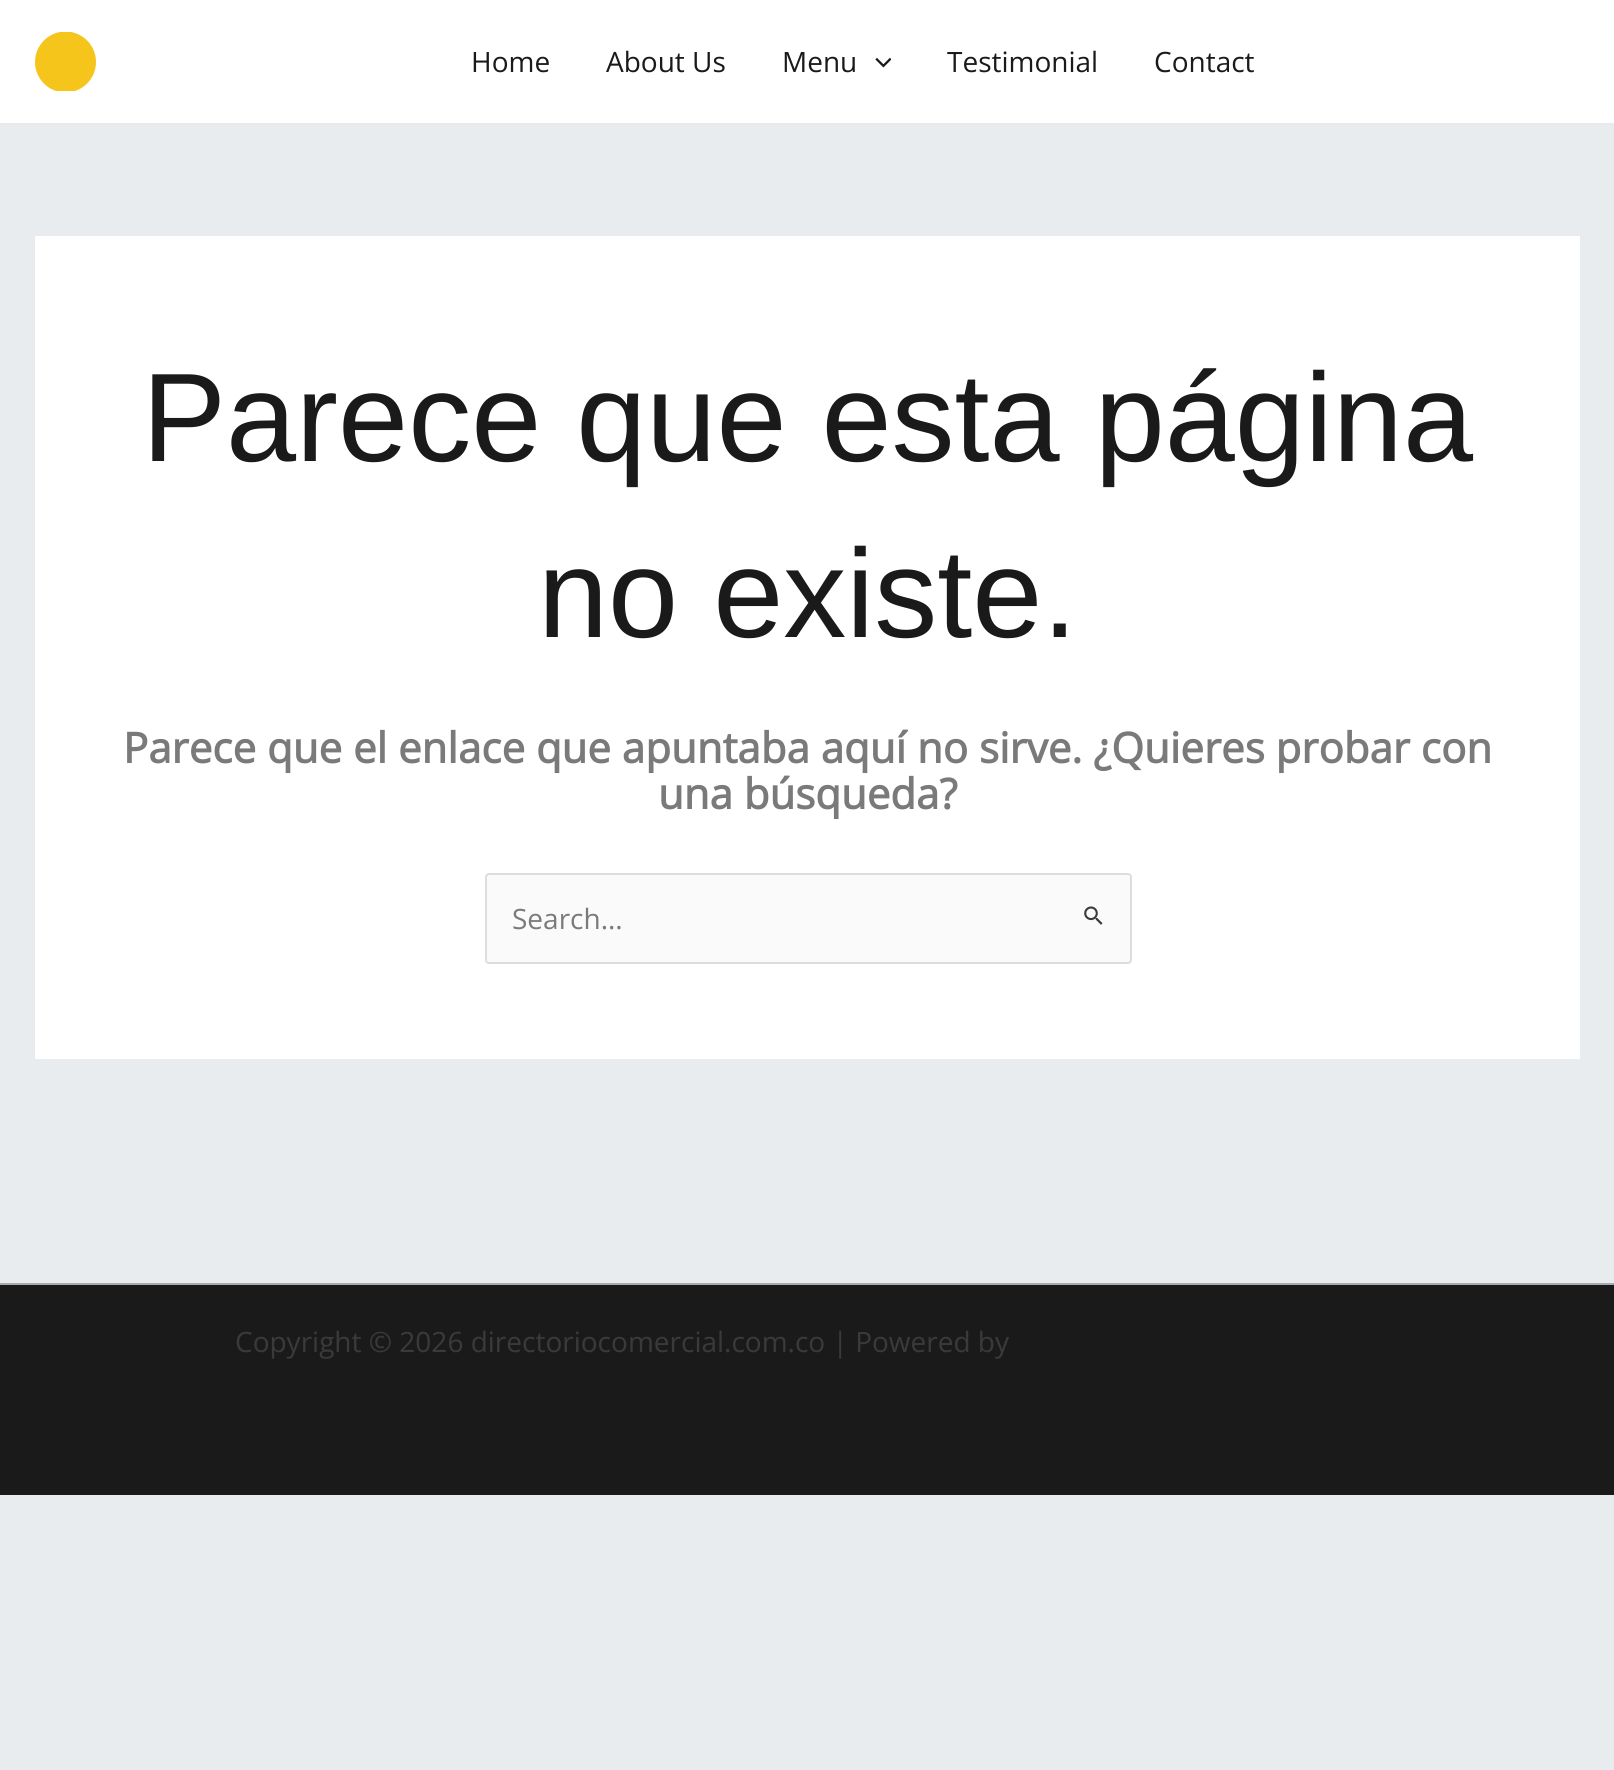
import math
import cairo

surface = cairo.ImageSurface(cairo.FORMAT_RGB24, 1614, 1770)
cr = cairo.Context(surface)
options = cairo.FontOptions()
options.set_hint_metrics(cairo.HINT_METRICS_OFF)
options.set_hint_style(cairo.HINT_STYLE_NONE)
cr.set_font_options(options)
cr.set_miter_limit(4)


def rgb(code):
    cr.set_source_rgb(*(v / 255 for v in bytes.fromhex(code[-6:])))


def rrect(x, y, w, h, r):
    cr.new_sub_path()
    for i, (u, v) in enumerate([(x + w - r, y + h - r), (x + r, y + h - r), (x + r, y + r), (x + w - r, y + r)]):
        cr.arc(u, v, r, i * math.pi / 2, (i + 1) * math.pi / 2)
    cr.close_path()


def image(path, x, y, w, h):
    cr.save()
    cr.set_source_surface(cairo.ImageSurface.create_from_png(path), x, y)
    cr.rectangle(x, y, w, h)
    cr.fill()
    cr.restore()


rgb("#e9ecef")
cr.paint()
rgb("#ffffff")
cr.rectangle(0, 0, 1614, 123)
cr.fill()
rgb("#eaeaea")
cr.rectangle(0, 123, 1614, 2)
cr.fill()
image("img/1.png", 35, 32, 61, 59)
image("img/2.png", 875, 57, 16, 11)
rgb("#ffffff")
cr.rectangle(35, 236, 1545, 823)
cr.fill()
rgb("#fafafa")
rrect(486, 874, 645, 89, 3)
cr.fill_preserve()
rgb("#dddddd")
cr.stroke()
image("img/3.png", 1084, 906, 19, 19)
rgb("#1a1a1a")
cr.rectangle(0, 1285, 1614, 210)
cr.fill()
rgb("#aaaaaa")
cr.rectangle(0, 1283, 1614, 2)
cr.fill()
cr.select_font_face("Open Sans")
cr.set_font_size(28)
rgb("#1a1a1a")
for x, y, s in [
    (471, 72, "Home"),
    (606, 72, "About Us"),
    (782, 72, "Menu"),
    (947, 72, "Testimonial"),
    (1154, 72, "Contact"),
]:
    cr.move_to(x, y)
    cr.show_text(s)
cr.select_font_face("Liberation Sans")
cr.set_font_size(126)
cr.move_to(142, 461)
cr.show_text("Parece que esta página")
cr.move_to(538, 637)
cr.show_text("no existe.")
cr.select_font_face("Open Sans", cairo.FONT_SLANT_NORMAL, cairo.FONT_WEIGHT_BOLD)
cr.set_font_size(42)
rgb("#7a7a7a")
cr.move_to(123, 763)
cr.show_text("Parece que el enlace que apuntaba aquí no sirve. ¿Quieres probar con")
cr.move_to(658, 809)
cr.show_text("una búsqueda?")
cr.select_font_face("Open Sans")
cr.set_font_size(28)
cr.move_to(512, 929)
cr.show_text("Search...")
rgb("#3a3a3a")
cr.move_to(235, 1352)
cr.show_text("Copyright © 2026 directoriocomercial.com.co | Powered by")
surface.write_to_png("page.png")
